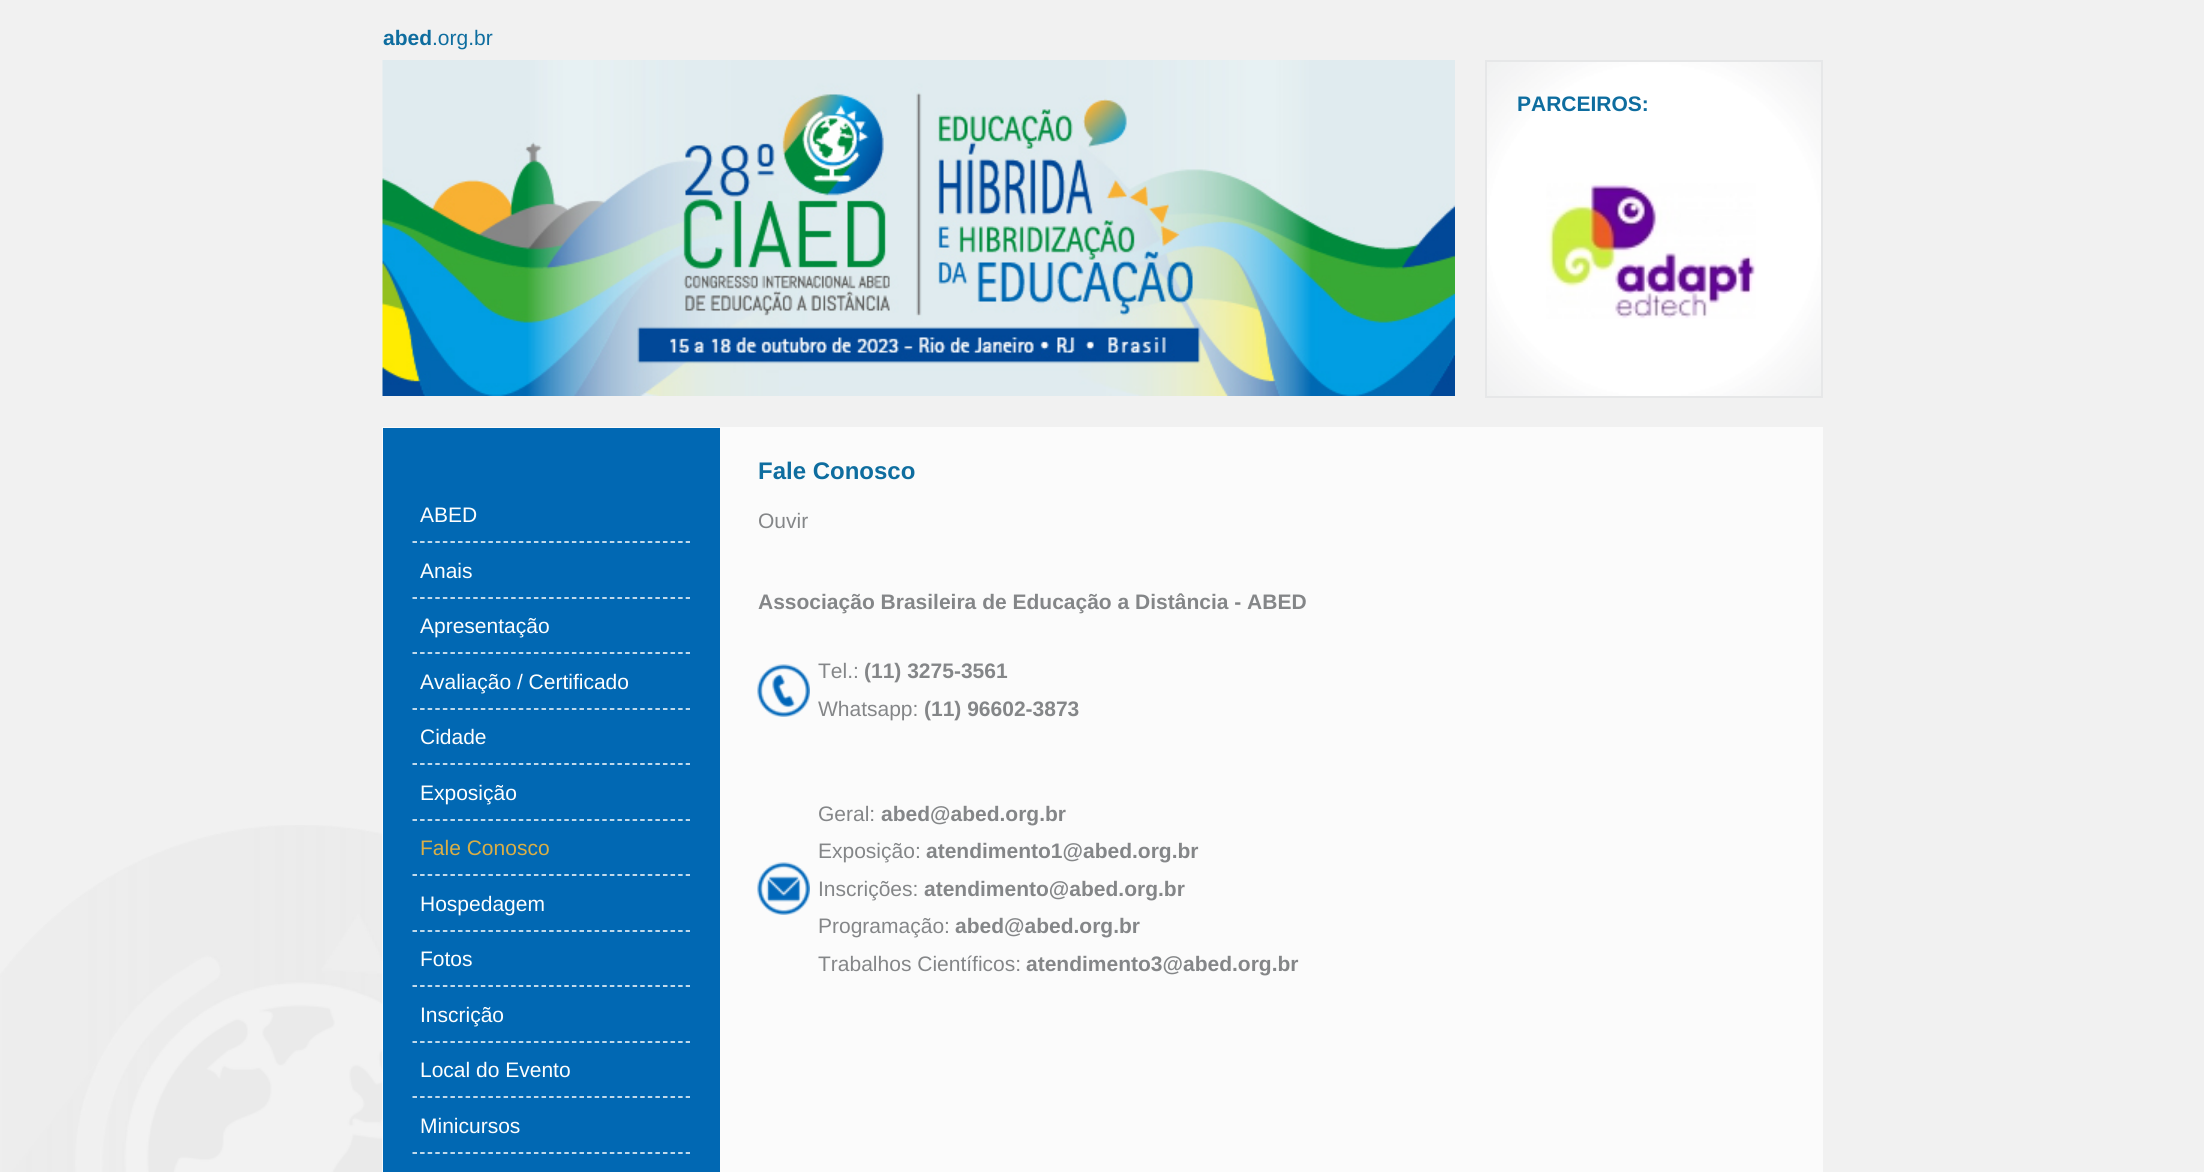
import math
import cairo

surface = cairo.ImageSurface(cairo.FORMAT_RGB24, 2204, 1172)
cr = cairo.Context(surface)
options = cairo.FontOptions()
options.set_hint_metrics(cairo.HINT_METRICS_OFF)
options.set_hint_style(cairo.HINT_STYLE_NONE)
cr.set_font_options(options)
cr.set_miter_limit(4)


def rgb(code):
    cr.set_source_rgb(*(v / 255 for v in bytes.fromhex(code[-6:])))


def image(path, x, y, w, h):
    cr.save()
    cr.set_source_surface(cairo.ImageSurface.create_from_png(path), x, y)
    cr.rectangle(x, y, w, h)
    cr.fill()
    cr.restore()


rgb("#f1f1f1")
cr.paint()
image("img/1.png", 0, 825, 383, 347)
image("img/2.png", 382, 60, 1073, 336)
image("img/3.png", 1487, 62, 334, 334)
cr.rectangle(1486, 61, 336, 336)
rgb("#e6e7e8")
cr.stroke()
image("img/4.png", 1546, 182, 210, 137)
cr.set_source_rgba(1, 1, 1, 0.75)
cr.rectangle(382, 427, 1441, 745)
cr.fill()
rgb("#0168b3")
cr.rectangle(383, 428, 337, 744)
cr.fill()
cr.new_path()
cr.move_to(412.5, 542)
cr.line_to(690, 542)
rgb("#fefefe")
cr.set_line_width(1.5)
cr.set_dash([4.5, 3.09])
cr.stroke()
cr.new_path()
cr.move_to(412.5, 598)
cr.line_to(690, 598)
cr.stroke()
cr.new_path()
cr.move_to(412.5, 653)
cr.line_to(690, 653)
cr.stroke()
cr.new_path()
cr.move_to(412.5, 709)
cr.line_to(690, 709)
cr.stroke()
cr.new_path()
cr.move_to(412.5, 764)
cr.line_to(690, 764)
cr.stroke()
cr.new_path()
cr.move_to(412.5, 820)
cr.line_to(690, 820)
cr.stroke()
cr.new_path()
cr.move_to(412.5, 875)
cr.line_to(690, 875)
cr.stroke()
cr.new_path()
cr.move_to(412.5, 931)
cr.line_to(690, 931)
cr.stroke()
cr.new_path()
cr.move_to(412.5, 986)
cr.line_to(690, 986)
cr.stroke()
cr.new_path()
cr.move_to(412.5, 1042)
cr.line_to(690, 1042)
cr.stroke()
cr.new_path()
cr.move_to(412.5, 1097)
cr.line_to(690, 1097)
cr.stroke()
cr.new_path()
cr.move_to(412.5, 1153)
cr.line_to(690, 1153)
cr.stroke()
image("img/5.png", 757, 664, 53, 53)
image("img/6.png", 757, 862, 53, 53)
cr.select_font_face("Liberation Sans", cairo.FONT_SLANT_NORMAL, cairo.FONT_WEIGHT_BOLD)
cr.set_font_size(21)
rgb("#0e6d9f")
cr.move_to(383, 45)
cr.show_text("abed")
cr.select_font_face("Liberation Sans")
cr.move_to(432, 45)
cr.show_text(".org.br")
cr.select_font_face("Liberation Sans", cairo.FONT_SLANT_NORMAL, cairo.FONT_WEIGHT_BOLD)
cr.move_to(1517, 111)
cr.show_text("PARCEIROS:")
cr.select_font_face("Liberation Sans")
rgb("#fefefe")
for x, y, s in [
    (420, 522, "ABED"),
    (420, 578, "Anais"),
    (420, 633, "Apresentação"),
    (420, 689, "Avaliação / Certificado"),
    (420, 744, "Cidade"),
    (420, 800, "Exposição"),
]:
    cr.move_to(x, y)
    cr.show_text(s)
rgb("#d9ae46")
cr.move_to(420, 855)
cr.show_text("Fale Conosco")
rgb("#fefefe")
for x, y, s in [
    (420, 911, "Hospedagem"),
    (420, 966, "Fotos"),
    (420, 1022, "Inscrição"),
    (420, 1077, "Local do Evento"),
    (420, 1133, "Minicursos"),
]:
    cr.move_to(x, y)
    cr.show_text(s)
cr.select_font_face("Liberation Sans", cairo.FONT_SLANT_NORMAL, cairo.FONT_WEIGHT_BOLD)
cr.set_font_size(24)
rgb("#0e6d9f")
cr.move_to(758, 479)
cr.show_text("Fale Conosco")
cr.select_font_face("Liberation Sans")
cr.set_font_size(21)
rgb("#848688")
cr.move_to(758, 528)
cr.show_text("Ouvir")
cr.select_font_face("Liberation Sans", cairo.FONT_SLANT_NORMAL, cairo.FONT_WEIGHT_BOLD)
cr.move_to(758, 609)
cr.show_text("Associação Brasileira de Educação a Distância - ABED")
cr.select_font_face("Liberation Sans")
cr.move_to(818, 678)
cr.show_text("Tel.:")
cr.select_font_face("Liberation Sans", cairo.FONT_SLANT_NORMAL, cairo.FONT_WEIGHT_BOLD)
cr.move_to(864, 678)
cr.show_text("(11) 3275-3561")
cr.select_font_face("Liberation Sans")
cr.move_to(818, 716)
cr.show_text("Whatsapp:")
cr.select_font_face("Liberation Sans", cairo.FONT_SLANT_NORMAL, cairo.FONT_WEIGHT_BOLD)
cr.move_to(924, 716)
cr.show_text("(11) 96602-3873")
cr.select_font_face("Liberation Sans")
cr.move_to(818, 821)
cr.show_text("Geral:")
cr.select_font_face("Liberation Sans", cairo.FONT_SLANT_NORMAL, cairo.FONT_WEIGHT_BOLD)
cr.move_to(881, 821)
cr.show_text("abed@abed.org.br")
cr.select_font_face("Liberation Sans")
cr.move_to(818, 858)
cr.show_text("Exposição:")
cr.select_font_face("Liberation Sans", cairo.FONT_SLANT_NORMAL, cairo.FONT_WEIGHT_BOLD)
cr.move_to(926, 858)
cr.show_text("atendimento1@abed.org.br")
cr.select_font_face("Liberation Sans")
cr.move_to(818, 896)
cr.show_text("Inscrições:")
cr.select_font_face("Liberation Sans", cairo.FONT_SLANT_NORMAL, cairo.FONT_WEIGHT_BOLD)
cr.move_to(924, 896)
cr.show_text("atendimento@abed.org.br")
cr.select_font_face("Liberation Sans")
cr.move_to(818, 933)
cr.show_text("Programação:")
cr.select_font_face("Liberation Sans", cairo.FONT_SLANT_NORMAL, cairo.FONT_WEIGHT_BOLD)
cr.move_to(955, 933)
cr.show_text("abed@abed.org.br")
cr.select_font_face("Liberation Sans")
cr.move_to(818, 971)
cr.show_text("Trabalhos Científicos:")
cr.select_font_face("Liberation Sans", cairo.FONT_SLANT_NORMAL, cairo.FONT_WEIGHT_BOLD)
cr.move_to(1026, 971)
cr.show_text("atendimento3@abed.org.br")
surface.write_to_png("page.png")
